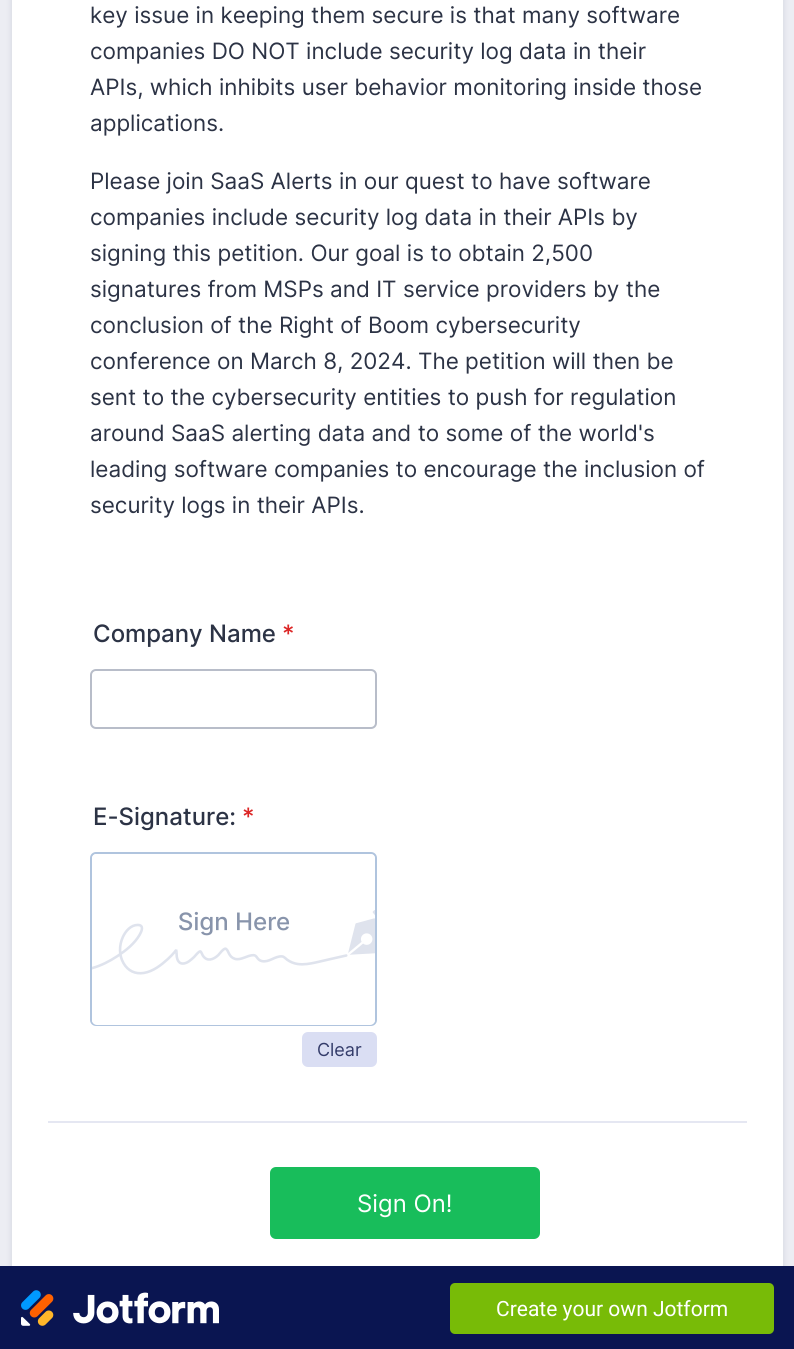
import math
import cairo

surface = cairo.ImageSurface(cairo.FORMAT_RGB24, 794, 1349)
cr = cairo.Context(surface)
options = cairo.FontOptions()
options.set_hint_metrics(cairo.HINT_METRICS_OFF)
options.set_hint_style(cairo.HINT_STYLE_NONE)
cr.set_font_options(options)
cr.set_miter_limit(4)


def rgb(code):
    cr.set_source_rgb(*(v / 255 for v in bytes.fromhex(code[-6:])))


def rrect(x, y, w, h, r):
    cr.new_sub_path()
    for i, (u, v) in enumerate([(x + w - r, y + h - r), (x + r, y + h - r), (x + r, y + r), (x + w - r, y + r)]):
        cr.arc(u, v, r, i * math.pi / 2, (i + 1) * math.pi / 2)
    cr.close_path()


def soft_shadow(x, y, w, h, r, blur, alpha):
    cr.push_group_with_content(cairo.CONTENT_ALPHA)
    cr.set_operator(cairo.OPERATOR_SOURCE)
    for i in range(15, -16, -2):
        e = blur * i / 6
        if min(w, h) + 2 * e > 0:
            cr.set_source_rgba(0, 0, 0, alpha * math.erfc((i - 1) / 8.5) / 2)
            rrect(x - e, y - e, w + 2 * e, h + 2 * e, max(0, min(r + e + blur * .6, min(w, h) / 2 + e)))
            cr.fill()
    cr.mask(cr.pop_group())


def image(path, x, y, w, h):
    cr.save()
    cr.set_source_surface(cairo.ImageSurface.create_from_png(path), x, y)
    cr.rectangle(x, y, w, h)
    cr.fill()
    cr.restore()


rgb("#ecedf3")
cr.paint()
rgb("#57647e")
soft_shadow(12, -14, 771, 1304, 5, 3, 0.21)
rgb("#ffffff")
cr.rectangle(12, 0, 771, 1266)
cr.fill()
rrect(91, 670, 285, 58, 5)
rgb("#b8bdc9")
cr.stroke()
rrect(91, 853, 285, 172, 5)
rgb("#b0c4de")
cr.stroke()
rgb("#ffffff")
rrect(92, 854, 283, 171, 5)
cr.fill()
image("img/1.png", 92, 910, 283, 65)
rgb("#dadef3")
rrect(302, 1032, 75, 35, 6)
cr.fill()
rgb("#e5e7f2")
cr.rectangle(48, 1121, 699, 2)
cr.fill()
rgb("#18bd5b")
rrect(271, 1168, 268, 70, 5)
cr.fill_preserve()
cr.stroke()
rgb("#0a1551")
cr.rectangle(0, 1266, 794, 83)
cr.fill()
image("img/2.png", 21, 1290, 198, 36)
rgb("#78bb07")
rrect(450, 1283, 324, 51, 5)
cr.fill()
cr.select_font_face("Inter")
cr.set_font_size(22.5)
rgb("#2c3345")
for x, y, s in [
    (90, 23, "key issue in keeping them secure is that many software"),
    (90, 59, "companies DO NOT include security log data in their"),
    (90, 95, "APIs, which inhibits user behavior monitoring inside those"),
    (90, 131, "applications."),
    (90, 189, "Please join SaaS Alerts in our quest to have software"),
    (90, 225, "companies include security log data in their APIs by"),
    (90, 261, "signing this petition. Our goal is to obtain 2,500"),
    (90, 297, "signatures from MSPs and IT service providers by the"),
    (90, 333, "conclusion of the Right of Boom cybersecurity"),
    (90, 369, "conference on March 8, 2024. The petition will then be"),
    (90, 405, "sent to the cybersecurity entities to push for regulation"),
    (90, 441, "around SaaS alerting data and to some of the world's"),
    (90, 477, "leading software companies to encourage the inclusion of"),
    (90, 513, "security logs in their APIs."),
]:
    cr.move_to(x, y)
    cr.show_text(s)
cr.select_font_face("Inter Medium")
cr.set_font_size(24)
cr.move_to(93, 642)
cr.show_text("Company Name")
rgb("#dc2626")
cr.move_to(282, 642)
cr.show_text("*")
rgb("#2c3345")
cr.move_to(93, 825)
cr.show_text("E-Signature:")
rgb("#dc2626")
cr.move_to(242, 825)
cr.show_text("*")
cr.select_font_face("Inter")
cr.set_font_size(18)
rgb("#343c6a")
cr.move_to(317, 1056)
cr.show_text("Clear")
cr.set_font_size(24)
rgb("#ffffff")
cr.move_to(357, 1212)
cr.show_text("Sign On!")
cr.select_font_face("Roboto")
cr.set_font_size(21)
cr.move_to(496, 1316)
cr.show_text("Create your own Jotform")
surface.write_to_png("page.png")
